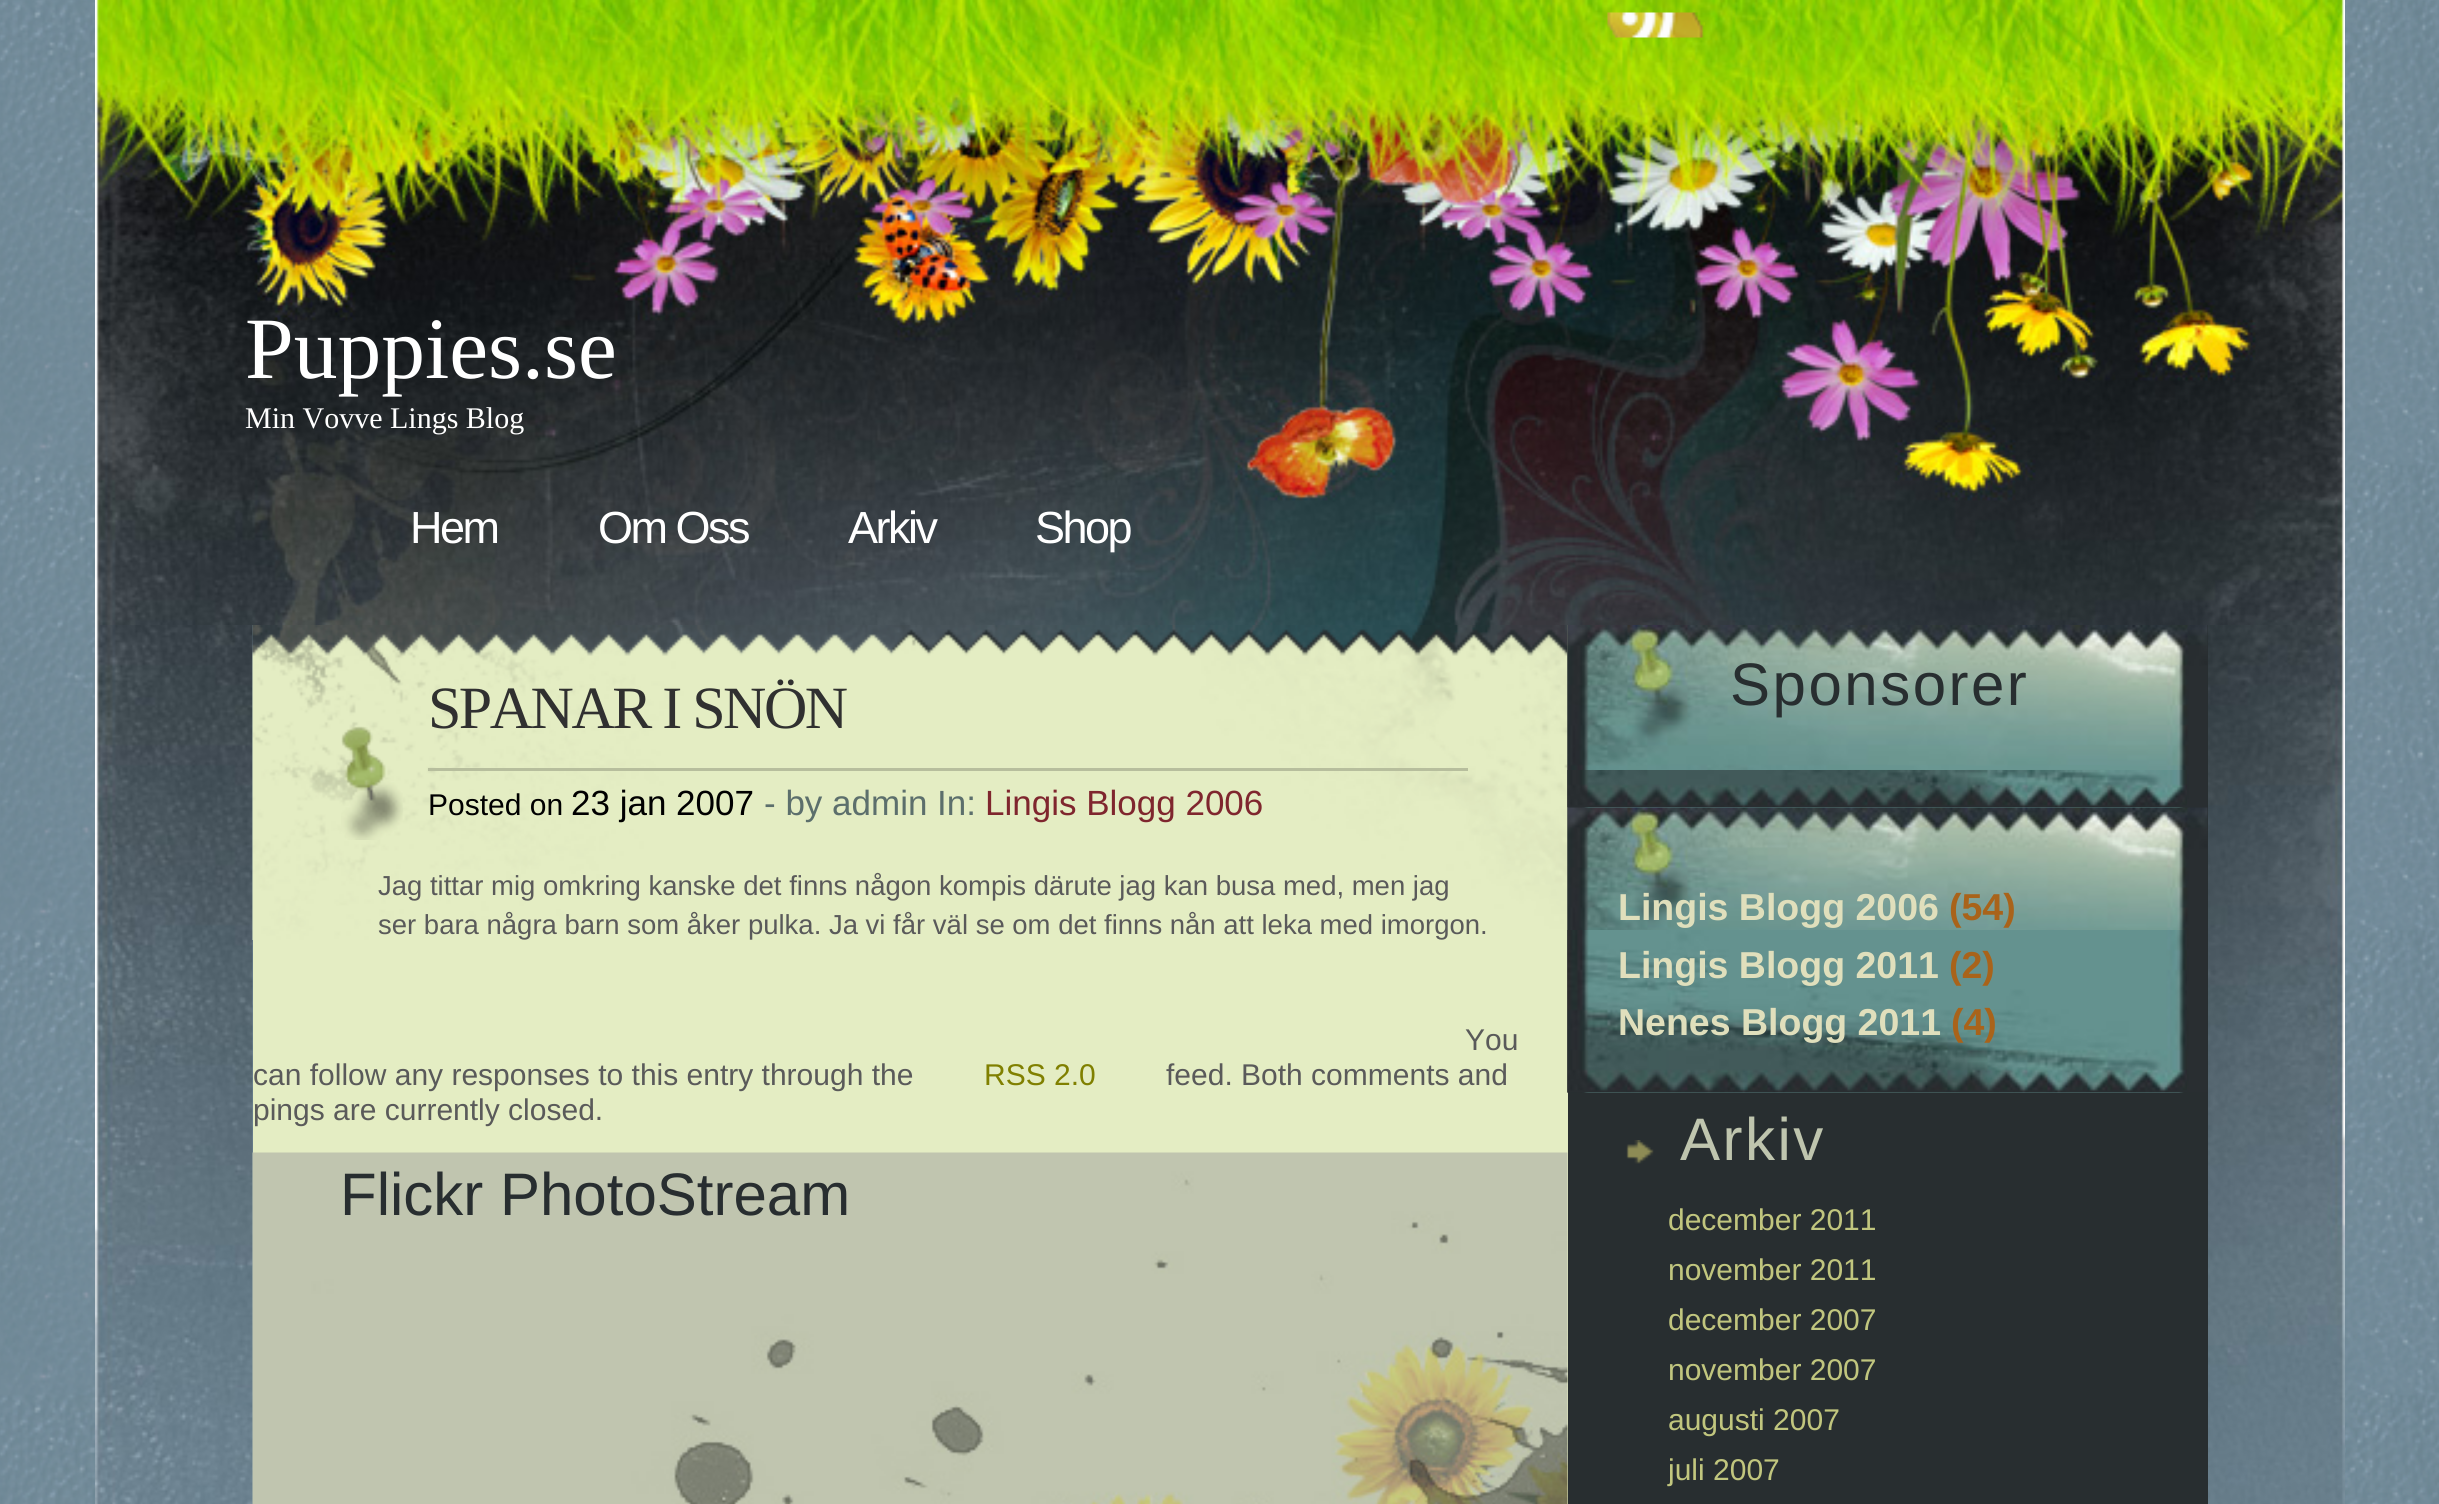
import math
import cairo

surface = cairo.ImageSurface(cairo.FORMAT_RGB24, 2439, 1504)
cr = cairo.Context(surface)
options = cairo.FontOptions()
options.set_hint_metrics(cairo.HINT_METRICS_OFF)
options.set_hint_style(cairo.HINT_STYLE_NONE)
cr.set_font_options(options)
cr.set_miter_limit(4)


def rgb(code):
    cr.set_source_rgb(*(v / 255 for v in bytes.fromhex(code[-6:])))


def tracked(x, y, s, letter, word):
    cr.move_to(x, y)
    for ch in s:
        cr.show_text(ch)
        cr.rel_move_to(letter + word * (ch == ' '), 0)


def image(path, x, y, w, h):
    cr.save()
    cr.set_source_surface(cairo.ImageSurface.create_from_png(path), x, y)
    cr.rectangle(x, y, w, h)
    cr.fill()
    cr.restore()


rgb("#ffffff")
cr.paint()
image("img/1.png", 0, 0, 2439, 1504)
image("img/2.png", 95, 0, 2250, 625)
image("img/3.png", 1607, 12, 98, 26)
image("img/4.png", 95, 625, 158, 879)
rgb("#e4edc3")
cr.rectangle(253, 625, 1315, 879)
cr.fill()
image("img/5.png", 252, 625, 1316, 315)
image("img/6.png", 341, 726, 62, 114)
rgb("#b7be9d")
cr.rectangle(428, 768, 1040, 3)
cr.fill()
image("img/7.png", 252, 1152, 1316, 352)
rgb("#282e30")
cr.rectangle(1568, 625, 640, 879)
cr.fill()
image("img/8.png", 1567, 625, 617, 183)
image("img/9.png", 1567, 625, 641, 183)
image("img/10.png", 1567, 770, 620, 38)
image("img/11.png", 1567, 807, 617, 286)
image("img/12.png", 1567, 807, 641, 286)
image("img/13.png", 1567, 930, 620, 163)
image("img/14.png", 1626, 1140, 28, 24)
image("img/15.png", 2208, 625, 137, 879)
cr.select_font_face("Liberation Serif")
cr.set_font_size(87.5)
rgb("#ffffff")
cr.move_to(245, 378)
cr.show_text("Puppies.se")
cr.set_font_size(30)
cr.move_to(245, 428)
cr.show_text("Min Vovve Lings Blog")
cr.select_font_face("Liberation Sans")
cr.set_font_size(45)
for x, y, s in [
    (410, 543, "Hem"),
    (598, 543, "Om Oss"),
    (848, 543, "Arkiv"),
    (1035, 543, "Shop"),
]:
    tracked(x, y, s, -2.5, 0)
cr.select_font_face("Liberation Serif")
cr.set_font_size(60)
rgb("#303030")
tracked(428, 728, "SPANAR I SNÖN", -2.5, 0)
cr.select_font_face("Liberation Sans")
cr.set_font_size(30)
rgb("#000000")
cr.move_to(428, 815)
cr.show_text("Posted on")
cr.set_font_size(35)
cr.move_to(571, 815)
cr.show_text("23 jan 2007")
rgb("#5c6f6c")
cr.move_to(764, 815)
cr.show_text("- by admin In:")
rgb("#7f262e")
cr.move_to(985, 815)
cr.show_text("Lingis Blogg 2006")
cr.set_font_size(27.5)
rgb("#5a5a5a")
cr.move_to(378, 895)
cr.show_text("Jag tittar mig omkring kanske det finns någon kompis därute jag kan busa med, men jag")
cr.move_to(378, 934)
cr.show_text("ser bara några barn som åker pulka. Ja vi får väl se om det finns nån att leka med imorgon.")
cr.set_font_size(30)
cr.move_to(1465, 1050)
cr.show_text("You")
cr.move_to(253, 1085)
cr.show_text("can follow any responses to this entry through the")
rgb("#808000")
cr.move_to(984, 1085)
cr.show_text("RSS 2.0")
rgb("#5a5a5a")
cr.move_to(1166, 1085)
cr.show_text("feed. Both comments and")
cr.move_to(253, 1120)
cr.show_text("pings are currently closed.")
cr.set_font_size(60)
rgb("#282e30")
cr.move_to(340, 1215)
cr.show_text("Flickr PhotoStream")
tracked(1730, 705, "Sponsorer", 2.5, 0)
cr.select_font_face("Liberation Sans", cairo.FONT_SLANT_NORMAL, cairo.FONT_WEIGHT_BOLD)
cr.set_font_size(37.5)
rgb("#e0dfbc")
cr.move_to(1618, 920)
cr.show_text("Lingis Blogg 2006")
rgb("#a9631a")
cr.move_to(1949, 920)
cr.show_text("(54)")
rgb("#e0dfbc")
cr.move_to(1618, 978)
cr.show_text("Lingis Blogg 2011")
rgb("#a9631a")
cr.move_to(1949, 978)
cr.show_text("(2)")
rgb("#e0dfbc")
cr.move_to(1618, 1035)
cr.show_text("Nenes Blogg 2011")
rgb("#a9631a")
cr.move_to(1951, 1035)
cr.show_text("(4)")
cr.select_font_face("Liberation Sans")
cr.set_font_size(60)
rgb("#bfc5ae")
tracked(1680, 1160, "Arkiv", 2.5, 0)
cr.set_font_size(30)
rgb("#c1c67e")
for x, y, s in [
    (1668, 1230, "december 2011"),
    (1668, 1280, "november 2011"),
    (1668, 1330, "december 2007"),
    (1668, 1380, "november 2007"),
    (1668, 1430, "augusti 2007"),
    (1668, 1480, "juli 2007"),
]:
    cr.move_to(x, y)
    cr.show_text(s)
surface.write_to_png("page.png")
